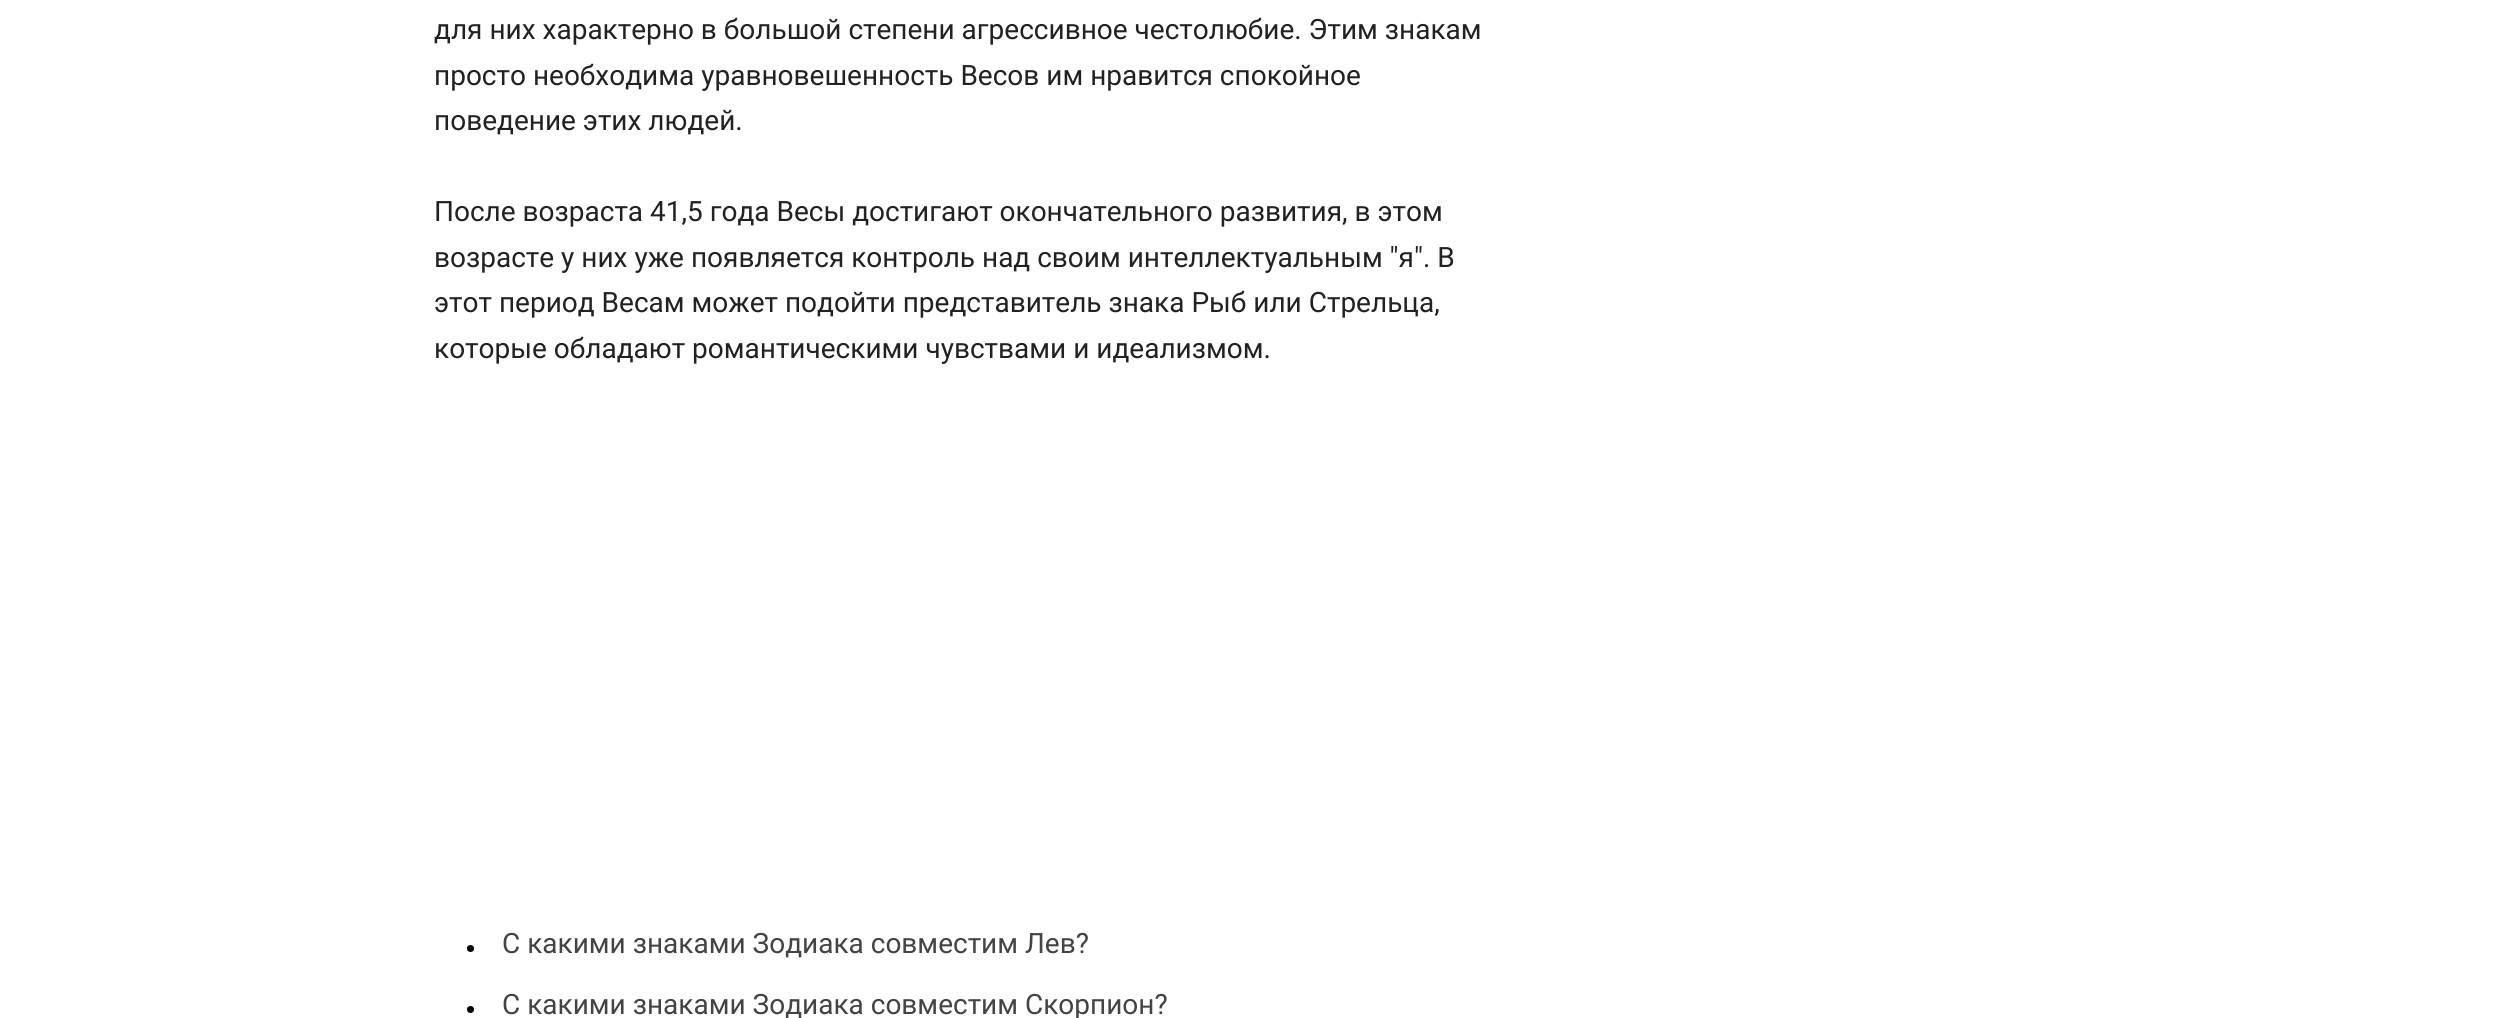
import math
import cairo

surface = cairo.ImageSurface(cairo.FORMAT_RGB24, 2520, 1018)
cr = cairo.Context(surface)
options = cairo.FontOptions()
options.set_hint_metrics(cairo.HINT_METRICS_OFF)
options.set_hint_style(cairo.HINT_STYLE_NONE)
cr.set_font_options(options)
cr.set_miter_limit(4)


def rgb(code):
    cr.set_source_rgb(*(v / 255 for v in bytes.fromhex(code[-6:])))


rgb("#ffffff")
cr.paint()
rgb("#000000")
cr.arc(470.5, 948.5, 3.5, 0, 2 * math.pi)
cr.fill()
cr.arc(470.5, 1009.5, 3.5, 0, 2 * math.pi)
cr.fill()
cr.select_font_face("Roboto")
cr.set_font_size(28)
rgb("#222222")
for x, y, s in [
    (434, 39, "для них характерно в большой степени агрессивное честолюбие. Этим знакам"),
    (434, 85, "просто необходима уравновешенность Весов им нравится спокойное"),
    (434, 130, "поведение этих людей."),
    (434, 221, "После возраста 41,5 года Весы достигают окончательного развития, в этом"),
    (434, 267, "возрасте у них уже появляется контроль над своим интеллектуальным \"я\". В"),
    (434, 312, "этот период Весам может подойти представитель знака Рыб или Стрельца,"),
    (434, 358, "которые обладают романтическими чувствами и идеализмом."),
]:
    cr.move_to(x, y)
    cr.show_text(s)
rgb("#444444")
cr.move_to(502, 953)
cr.show_text("С какими знаками Зодиака совместим Лев?")
cr.move_to(502, 1014)
cr.show_text("С какими знаками Зодиака совместим Скорпион?")
surface.write_to_png("page.png")
